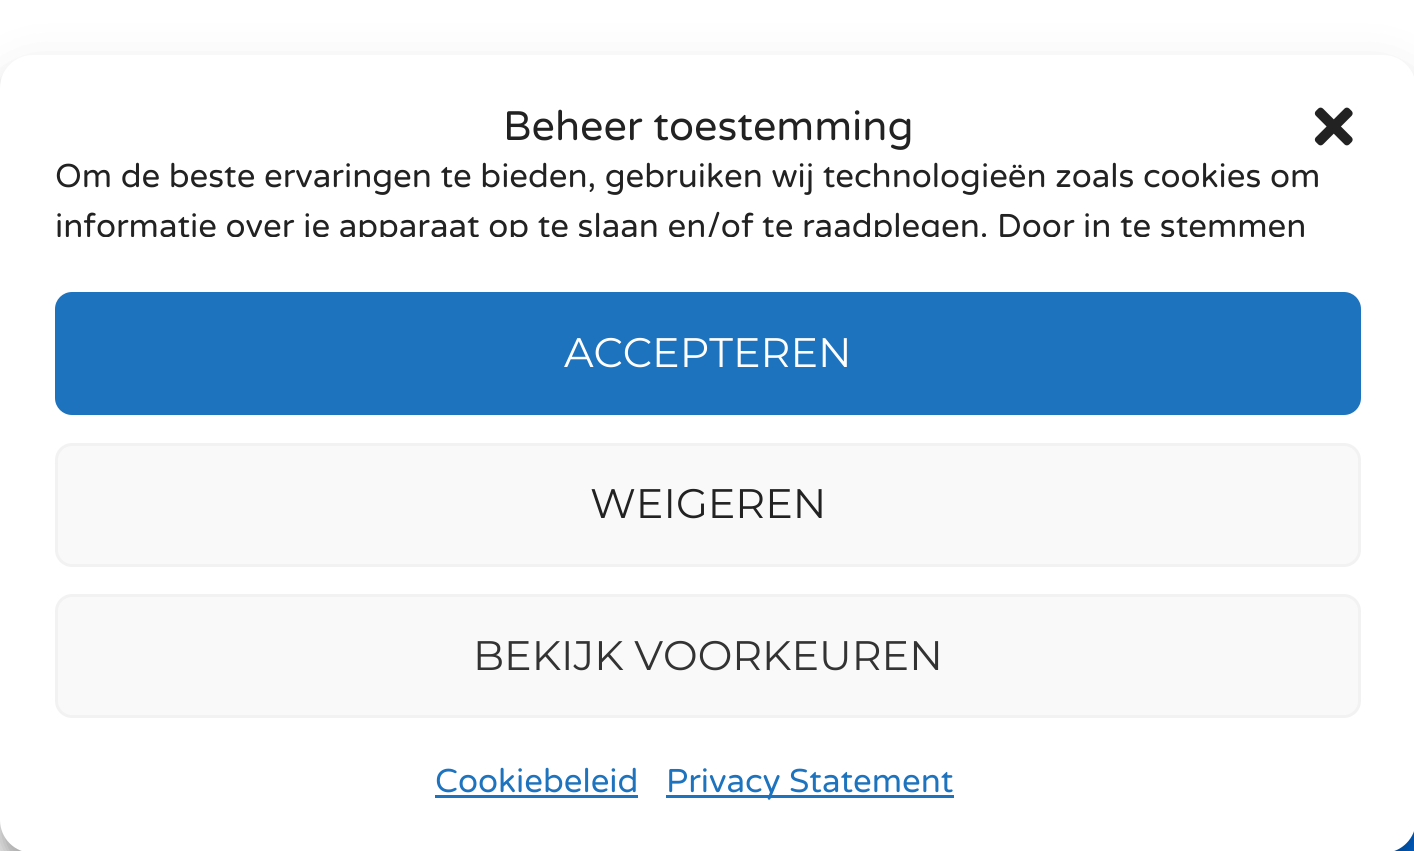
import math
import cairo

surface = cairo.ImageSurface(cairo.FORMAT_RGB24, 1414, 851)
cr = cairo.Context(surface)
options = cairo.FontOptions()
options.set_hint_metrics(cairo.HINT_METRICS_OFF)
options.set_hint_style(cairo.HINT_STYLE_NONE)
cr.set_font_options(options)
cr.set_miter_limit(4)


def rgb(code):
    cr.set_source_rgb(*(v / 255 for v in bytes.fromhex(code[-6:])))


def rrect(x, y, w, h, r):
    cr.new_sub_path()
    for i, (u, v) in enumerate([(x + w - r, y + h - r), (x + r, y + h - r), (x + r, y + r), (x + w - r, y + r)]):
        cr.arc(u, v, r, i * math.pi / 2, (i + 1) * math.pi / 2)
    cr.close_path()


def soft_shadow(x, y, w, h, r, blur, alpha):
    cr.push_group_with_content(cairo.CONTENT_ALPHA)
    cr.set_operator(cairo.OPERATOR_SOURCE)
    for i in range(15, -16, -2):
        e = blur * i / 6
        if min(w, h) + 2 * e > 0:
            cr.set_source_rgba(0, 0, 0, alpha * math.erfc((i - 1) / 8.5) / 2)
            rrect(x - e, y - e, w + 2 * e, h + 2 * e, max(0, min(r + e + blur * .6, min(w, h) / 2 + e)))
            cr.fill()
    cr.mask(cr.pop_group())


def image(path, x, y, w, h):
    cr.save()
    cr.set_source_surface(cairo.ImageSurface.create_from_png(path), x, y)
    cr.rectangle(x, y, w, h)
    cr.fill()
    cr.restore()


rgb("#ffffff")
cr.paint()
rgb("#006adb")
cr.rectangle(1394, 831, 20, 20)
cr.fill()
rgb("#000000")
soft_shadow(0, 72, 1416, 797, 33, 8, 0.23)
soft_shadow(0, 83, 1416, 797, 33, 27.5, 0.19)
rgb("#ffffff")
rrect(0, 55, 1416, 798, 33)
cr.fill()
image("img/1.png", 1314, 107, 39, 39)
rgb("#1e73be")
rrect(56.5, 293.5, 1303, 120, 15.5)
cr.fill_preserve()
cr.set_line_width(3)
cr.stroke()
rgb("#f9f9f9")
rrect(56.5, 444.5, 1303, 121, 15.5)
cr.fill_preserve()
rgb("#f2f2f2")
cr.stroke()
rgb("#f9f9f9")
rrect(56.5, 595.5, 1303, 121, 15.5)
cr.fill_preserve()
rgb("#f2f2f2")
cr.stroke()
rgb("#1e73be")
cr.rectangle(435, 795, 203, 3)
cr.fill()
cr.rectangle(666, 795, 288, 3)
cr.fill()
cr.select_font_face("Varela Round")
cr.set_font_size(41.25)
rgb("#222222")
cr.move_to(503, 140)
cr.show_text("Beheer toestemming")
cr.set_font_size(33)
cr.move_to(55, 187)
cr.show_text("Om de beste ervaringen te bieden, gebruiken wij technologieën zoals cookies om")
cr.save()
cr.rectangle(55, 151, 1306, 86)
cr.clip()
cr.move_to(55, 237)
cr.show_text("informatie over je apparaat op te slaan en/of te raadplegen. Door in te stemmen")
cr.restore()
cr.select_font_face("Montserrat")
cr.set_font_size(41.25)
rgb("#ffffff")
cr.move_to(564, 367)
cr.show_text("ACCEPTEREN")
rgb("#222222")
cr.move_to(590, 518)
cr.show_text("WEIGEREN")
rgb("#333333")
cr.move_to(473, 670)
cr.show_text("BEKIJK VOORKEUREN")
cr.select_font_face("Varela Round")
cr.set_font_size(33)
rgb("#1e73be")
cr.move_to(435, 792)
cr.show_text("Cookiebeleid")
cr.move_to(666, 792)
cr.show_text("Privacy Statement")
surface.write_to_png("page.png")
